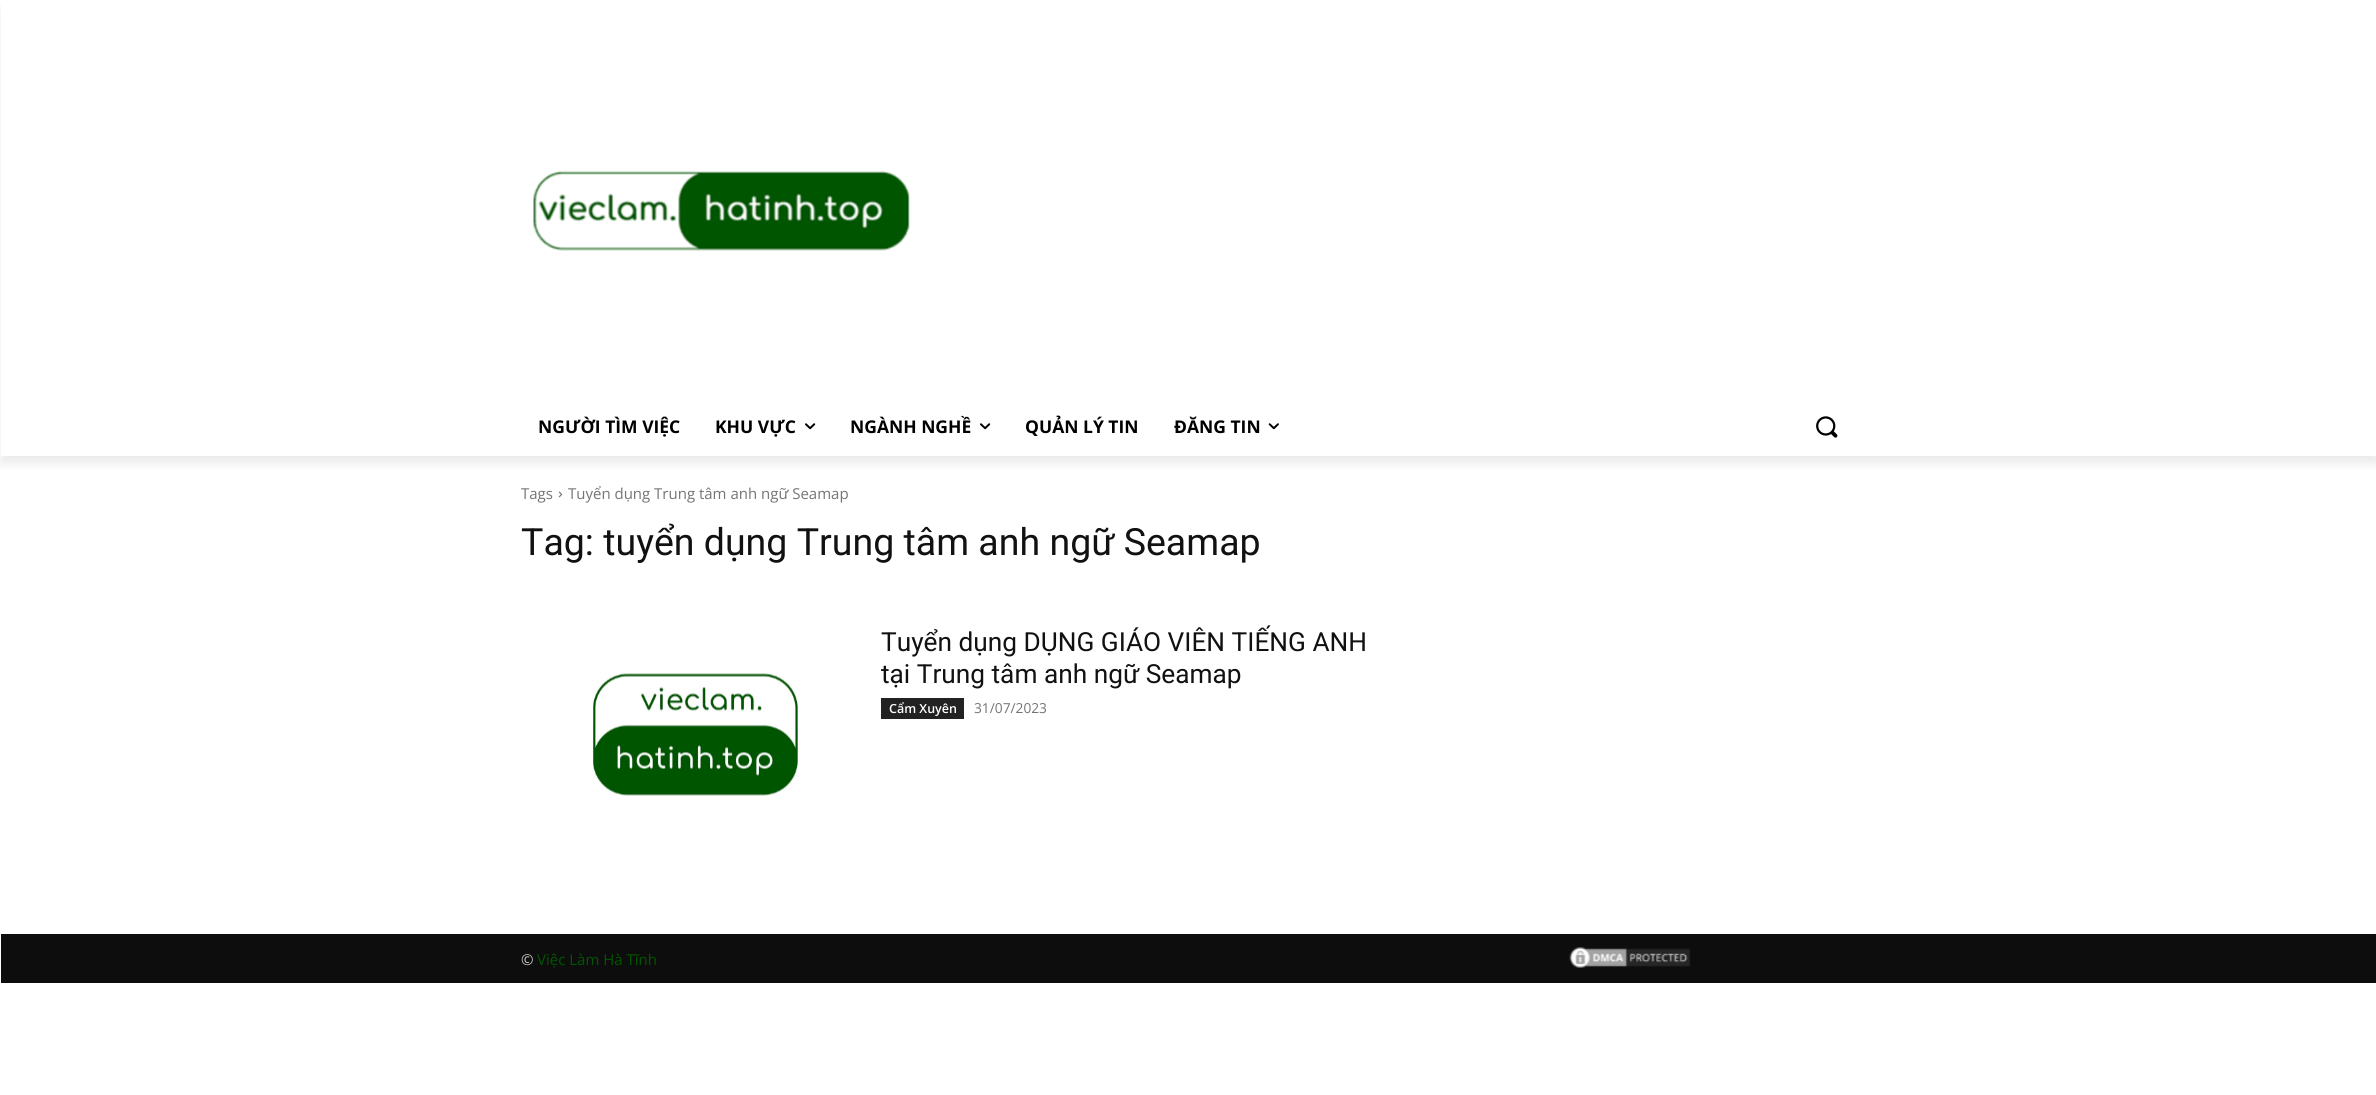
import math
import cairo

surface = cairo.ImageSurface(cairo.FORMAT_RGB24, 2376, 1095)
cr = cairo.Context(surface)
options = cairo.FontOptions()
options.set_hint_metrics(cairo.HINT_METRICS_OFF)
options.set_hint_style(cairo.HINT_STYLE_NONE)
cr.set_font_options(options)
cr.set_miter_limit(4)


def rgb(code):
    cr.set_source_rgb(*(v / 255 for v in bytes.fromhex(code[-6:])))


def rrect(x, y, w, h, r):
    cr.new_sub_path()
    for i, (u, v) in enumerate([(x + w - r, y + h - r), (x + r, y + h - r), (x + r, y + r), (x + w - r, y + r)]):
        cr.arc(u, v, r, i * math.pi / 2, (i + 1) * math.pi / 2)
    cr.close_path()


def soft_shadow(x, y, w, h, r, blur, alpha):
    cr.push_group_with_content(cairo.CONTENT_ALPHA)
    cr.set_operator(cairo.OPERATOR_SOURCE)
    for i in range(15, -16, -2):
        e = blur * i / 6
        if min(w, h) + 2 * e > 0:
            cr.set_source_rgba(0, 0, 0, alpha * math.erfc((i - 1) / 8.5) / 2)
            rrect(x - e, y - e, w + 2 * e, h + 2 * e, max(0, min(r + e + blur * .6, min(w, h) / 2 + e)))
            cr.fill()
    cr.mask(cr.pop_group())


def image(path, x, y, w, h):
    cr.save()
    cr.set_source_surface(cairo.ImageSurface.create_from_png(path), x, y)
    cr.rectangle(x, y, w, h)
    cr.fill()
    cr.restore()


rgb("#ffffff")
cr.paint()
image("img/1.png", 533, 170, 377, 81)
cr.save()
cr.set_fill_rule(cairo.FILL_RULE_EVEN_ODD)
cr.new_path()
cr.move_to(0, 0)
cr.line_to(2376, 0)
cr.line_to(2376, 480)
cr.line_to(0, 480)
cr.close_path()
cr.move_to(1, 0)
cr.line_to(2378, 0)
cr.line_to(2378, 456)
cr.line_to(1, 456)
cr.close_path()
cr.clip()
rgb("#000000")
soft_shadow(1, 8, 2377, 456, 0, 5, 0.08)
cr.restore()
image("img/2.png", 805, 423, 11, 7)
image("img/2.png", 980, 423, 11, 7)
image("img/3.png", 1268, 423, 11, 7)
image("img/4.png", 1816, 416, 22, 22)
image("img/5.png", 558, 491, 5, 7)
image("img/6.png", 592, 673, 206, 123)
rgb("#222222")
cr.rectangle(881, 698, 83, 21)
cr.fill()
rgb("#0d0d0d")
cr.rectangle(1, 934, 2375, 49)
cr.fill()
image("img/7.png", 1569, 947, 121, 21)
cr.select_font_face("Open Sans", cairo.FONT_SLANT_NORMAL, cairo.FONT_WEIGHT_BOLD)
cr.set_font_size(17.5)
rgb("#000000")
for x, y, s in [
    (538, 433, "NGƯỜI TÌM VIỆC"),
    (715, 433, "KHU VỰC"),
    (850, 433, "NGÀNH NGHỀ"),
    (1025, 433, "QUẢN LÝ TIN"),
    (1174, 433, "ĐĂNG TIN"),
]:
    cr.move_to(x, y)
    cr.show_text(s)
cr.select_font_face("Open Sans")
cr.set_font_size(15)
rgb("#747474")
cr.move_to(521, 499)
cr.show_text("Tags")
cr.move_to(568, 499)
cr.show_text("Tuyển dụng Trung tâm anh ngữ Seamap")
cr.select_font_face("Roboto")
cr.set_font_size(37.5)
rgb("#111111")
cr.move_to(521, 555)
cr.show_text("Tag: tuyển dụng Trung tâm anh ngữ Seamap")
cr.set_font_size(26.25)
cr.move_to(881, 651)
cr.show_text("Tuyển dụng DỤNG GIÁO VIÊN TIẾNG ANH")
cr.move_to(881, 683)
cr.show_text("tại Trung tâm anh ngữ Seamap")
cr.select_font_face("Open Sans SemiBold")
cr.set_font_size(12.5)
rgb("#ffffff")
cr.move_to(889, 713)
cr.show_text("Cẩm Xuyên")
cr.select_font_face("Open Sans")
cr.set_font_size(13.75)
rgb("#747474")
cr.move_to(974, 713)
cr.show_text("31/07/2023")
cr.set_font_size(15)
rgb("#cccccc")
cr.move_to(521, 965)
cr.show_text("©")
rgb("#005500")
cr.move_to(537, 965)
cr.show_text("Việc Làm Hà Tĩnh")
surface.write_to_png("page.png")
